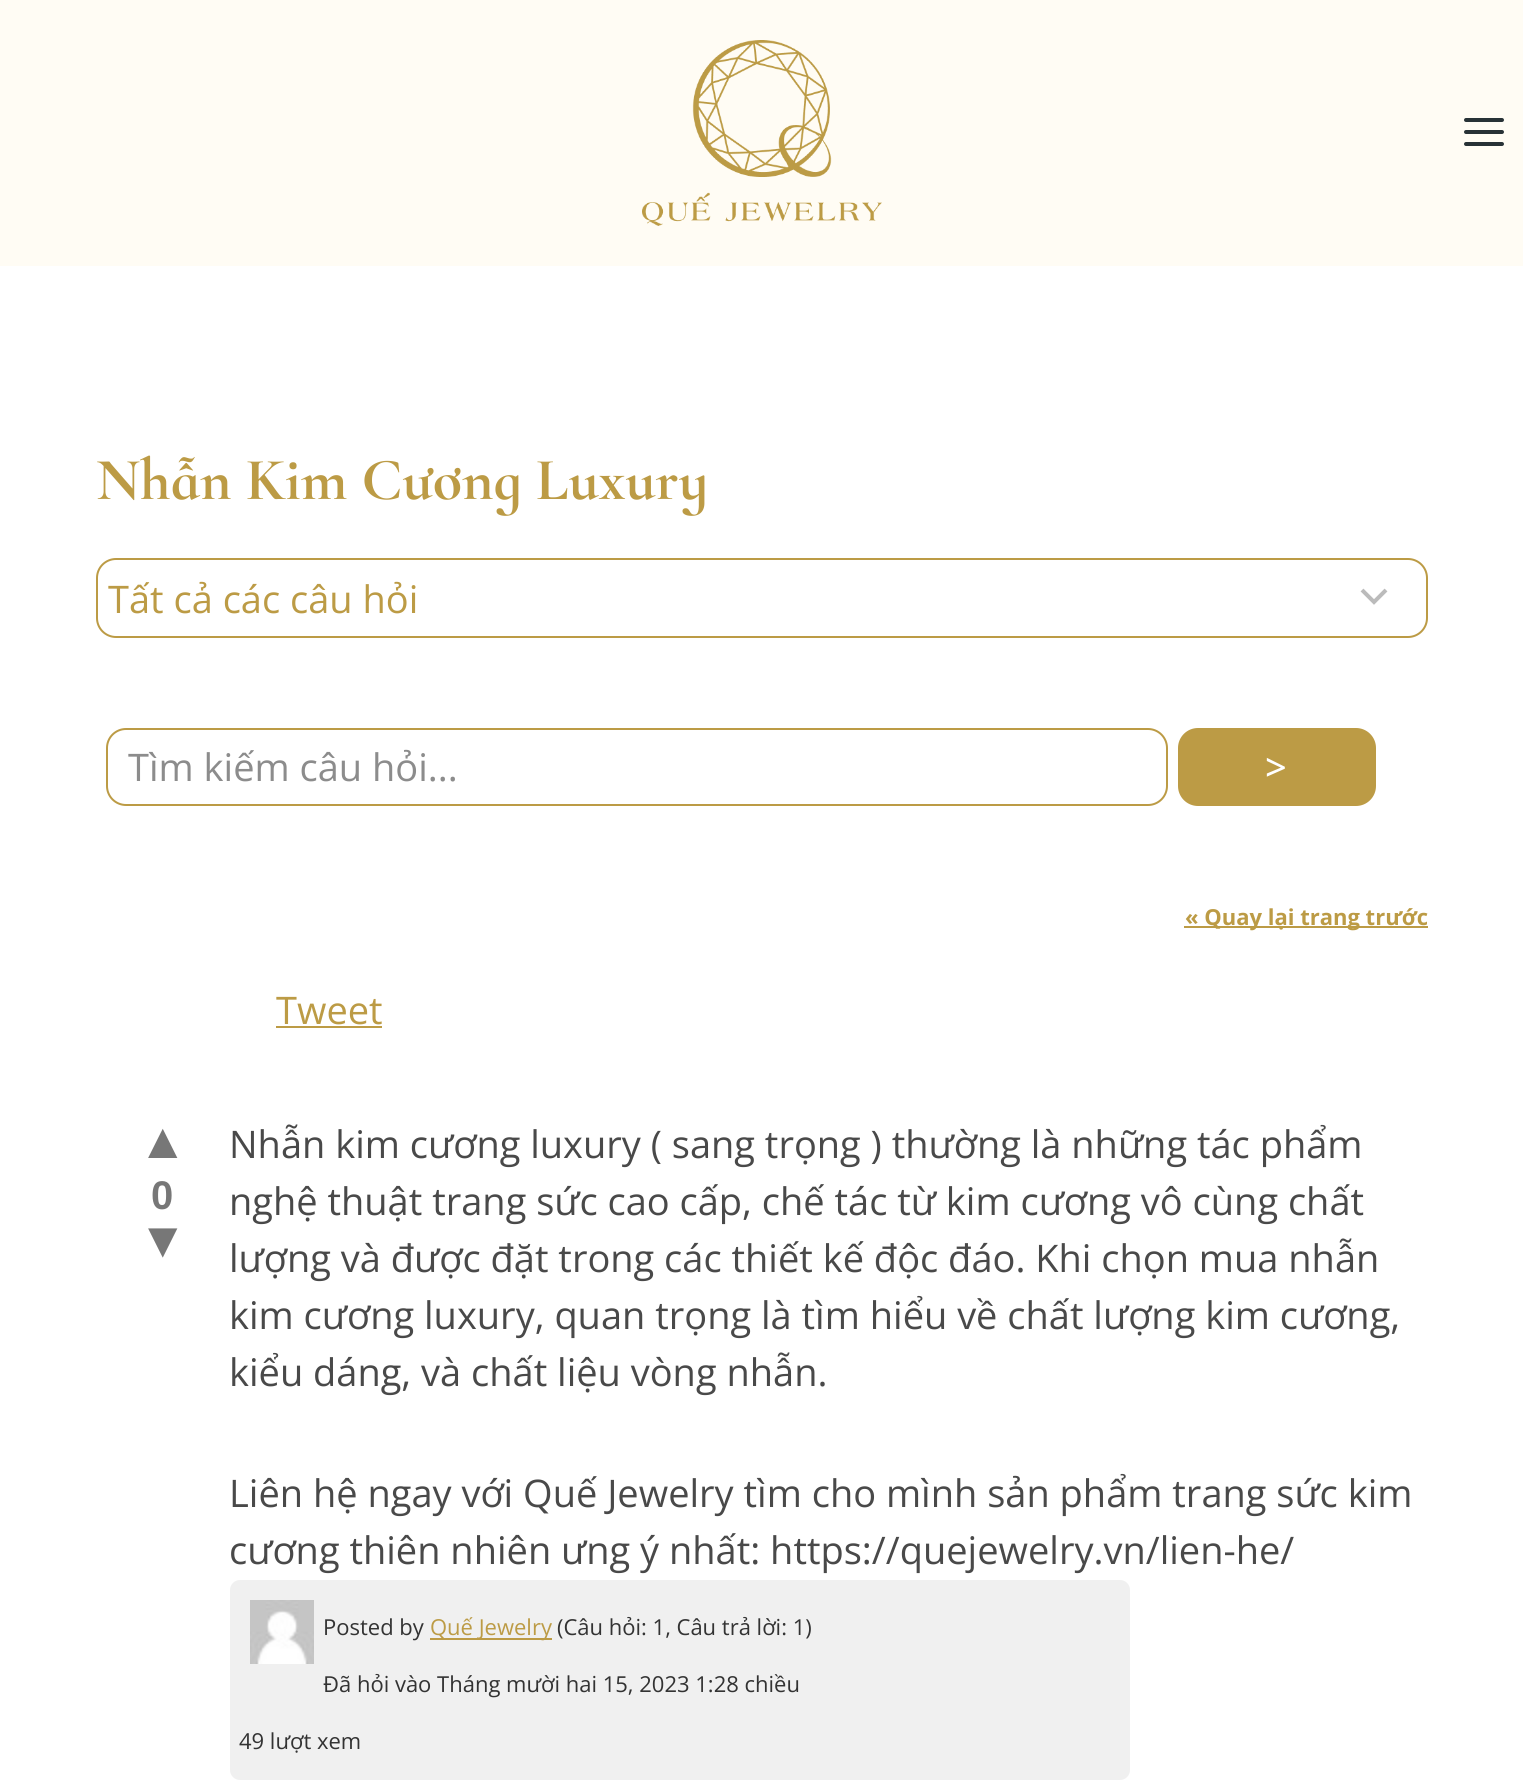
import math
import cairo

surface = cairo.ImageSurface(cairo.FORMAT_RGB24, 1523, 1788)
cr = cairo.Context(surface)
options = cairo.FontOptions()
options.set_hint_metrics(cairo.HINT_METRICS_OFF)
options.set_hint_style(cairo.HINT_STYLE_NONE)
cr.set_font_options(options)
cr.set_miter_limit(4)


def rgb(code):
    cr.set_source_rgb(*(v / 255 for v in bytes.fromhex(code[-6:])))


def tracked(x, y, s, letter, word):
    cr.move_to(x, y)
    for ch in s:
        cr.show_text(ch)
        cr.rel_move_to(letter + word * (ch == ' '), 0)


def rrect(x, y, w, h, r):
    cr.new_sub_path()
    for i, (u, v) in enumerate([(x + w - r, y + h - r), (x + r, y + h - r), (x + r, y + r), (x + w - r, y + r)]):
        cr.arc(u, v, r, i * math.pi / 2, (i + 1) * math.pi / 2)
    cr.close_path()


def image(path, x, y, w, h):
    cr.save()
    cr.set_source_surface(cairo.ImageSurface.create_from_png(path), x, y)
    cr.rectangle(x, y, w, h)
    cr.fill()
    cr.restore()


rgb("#ffffff")
cr.paint()
rgb("#fffcf4")
cr.rectangle(0, 0, 1523, 266)
cr.fill()
image("img/1.png", 642, 40, 240, 186)
image("img/2.png", 1464, 118, 40, 28)
cr.new_path()
cr.move_to(1362, 590)
cr.line_to(1374, 602)
cr.line_to(1386, 590)
rgb("#bbbbbb")
cr.set_line_width(4)
cr.stroke()
rrect(97, 559, 1330, 78, 19)
rgb("#bc9b45")
cr.set_line_width(2)
cr.stroke()
rrect(107, 729, 1060, 76, 19)
cr.stroke()
rrect(1179, 729, 196, 76, 19)
cr.fill_preserve()
cr.stroke()
cr.rectangle(1184, 926, 244, 2)
cr.fill()
cr.rectangle(276, 1026, 106, 2)
cr.fill()
rgb("#f0f0f0")
rrect(230, 1580, 900, 200, 10)
cr.fill()
image("img/3.png", 250, 1600, 64, 64)
rgb("#bc9b45")
cr.rectangle(430, 1638, 122, 2)
cr.fill()
cr.select_font_face("Cormorant Infant", cairo.FONT_SLANT_NORMAL, cairo.FONT_WEIGHT_BOLD)
cr.set_font_size(60)
cr.move_to(96, 499)
cr.show_text("Nhẫn Kim Cương Luxury")
cr.select_font_face("Open Sans")
cr.set_font_size(38)
cr.move_to(108, 613)
cr.show_text("Tất cả các câu hỏi")
rgb("#8c8c8c")
cr.move_to(128, 781)
cr.show_text("Tìm kiếm câu hỏi...")
cr.select_font_face("Open Sans Medium")
rgb("#ffffff")
tracked(1265, 781, ">", 2, 0)
cr.select_font_face("Open Sans", cairo.FONT_SLANT_NORMAL, cairo.FONT_WEIGHT_BOLD)
cr.set_font_size(22)
rgb("#bc9b45")
cr.move_to(1185, 925)
cr.show_text("« Quay lại trang trước")
cr.select_font_face("Open Sans")
cr.set_font_size(38)
cr.move_to(276, 1024)
cr.show_text("Tweet")
cr.select_font_face("Liberation Sans")
cr.set_font_size(50)
rgb("#777777")
cr.move_to(138, 1158)
cr.show_text("▲")
cr.select_font_face("Liberation Sans", cairo.FONT_SLANT_NORMAL, cairo.FONT_WEIGHT_BOLD)
cr.set_font_size(40)
cr.move_to(151, 1209)
cr.show_text("0")
cr.select_font_face("Liberation Sans")
cr.set_font_size(50)
cr.move_to(138, 1257)
cr.show_text("▼")
cr.select_font_face("Open Sans")
cr.set_font_size(38)
rgb("#494949")
for x, y, s in [
    (229, 1158, "Nhẫn kim cương luxury ( sang trọng ) thường là những tác phẩm"),
    (229, 1215, "nghệ thuật trang sức cao cấp, chế tác từ kim cương vô cùng chất"),
    (229, 1272, "lượng và được đặt trong các thiết kế độc đáo. Khi chọn mua nhẫn"),
    (229, 1329, "kim cương luxury, quan trọng là tìm hiểu về chất lượng kim cương,"),
    (229, 1386, "kiểu dáng, và chất liệu vòng nhẫn."),
    (229, 1507, "Liên hệ ngay với Quế Jewelry tìm cho mình sản phẩm trang sức kim"),
    (229, 1564, "cương thiên nhiên ưng ý nhất: https://quejewelry.vn/lien-he/"),
]:
    cr.move_to(x, y)
    cr.show_text(s)
cr.set_font_size(22)
rgb("#333333")
cr.move_to(323, 1635)
cr.show_text("Posted by")
rgb("#bc9b45")
cr.move_to(430, 1635)
cr.show_text("Quế Jewelry")
rgb("#333333")
for x, y, s in [
    (557, 1635, "(Câu hỏi: 1, Câu trả lời: 1)"),
    (323, 1692, "Đã hỏi vào Tháng mười hai 15, 2023 1:28 chiều"),
    (239, 1749, "49 lượt xem"),
]:
    cr.move_to(x, y)
    cr.show_text(s)
surface.write_to_png("page.png")
